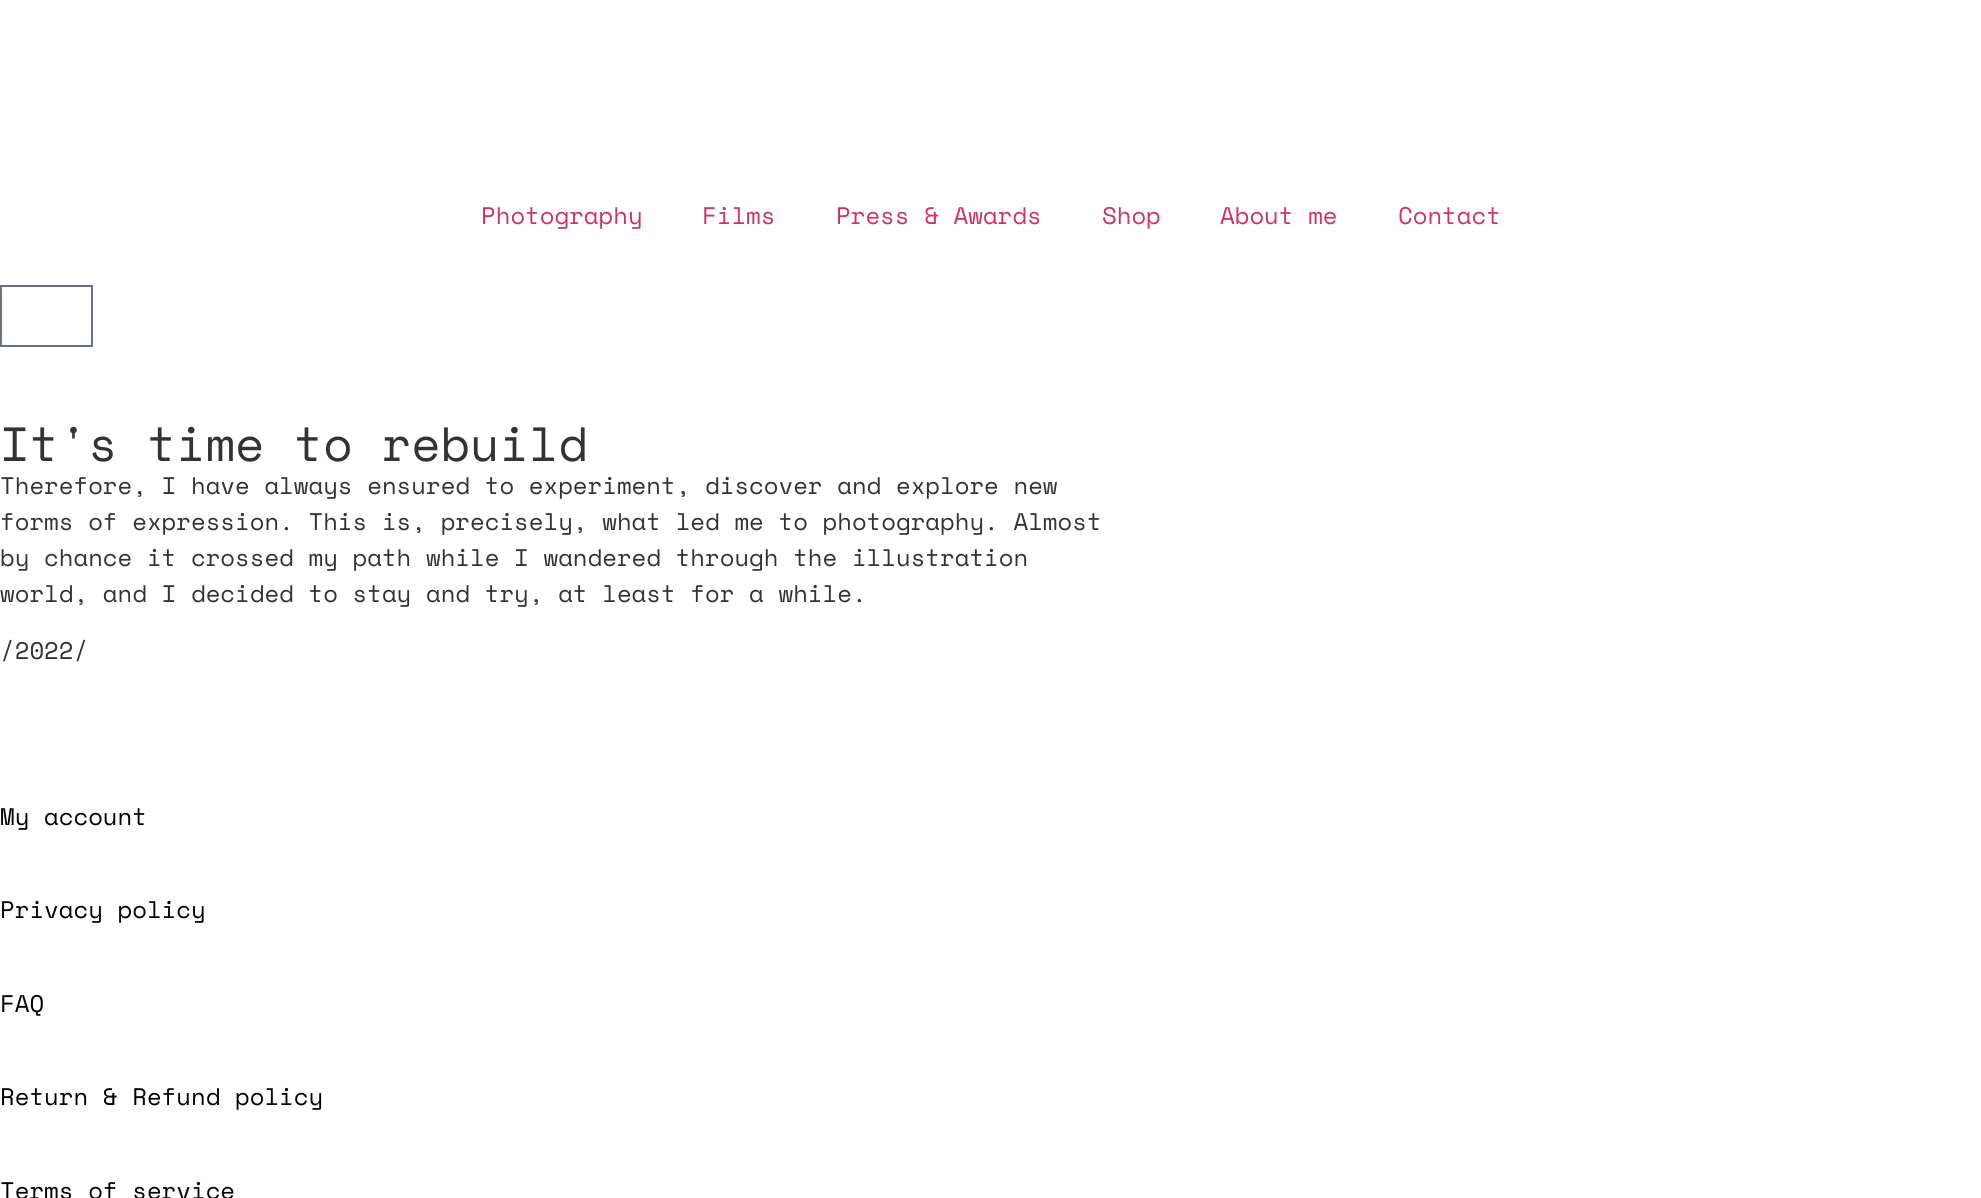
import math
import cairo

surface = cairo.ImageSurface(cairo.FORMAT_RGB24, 1981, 1198)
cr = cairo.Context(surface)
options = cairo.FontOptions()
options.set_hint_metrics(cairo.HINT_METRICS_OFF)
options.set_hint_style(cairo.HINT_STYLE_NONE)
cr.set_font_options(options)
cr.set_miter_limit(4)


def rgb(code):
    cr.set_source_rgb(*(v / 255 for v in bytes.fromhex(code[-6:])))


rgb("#ffffff")
cr.paint()
cr.rectangle(1, 286, 91, 60)
rgb("#69727d")
cr.stroke()
cr.select_font_face("Space Mono")
cr.set_font_size(24)
rgb("#cc3366")
for x, y, s in [
    (481, 224, "Photography"),
    (702, 224, "Films"),
    (836, 224, "Press & Awards"),
    (1102, 224, "Shop"),
    (1220, 224, "About me"),
    (1398, 224, "Contact"),
]:
    cr.move_to(x, y)
    cr.show_text(s)
cr.set_font_size(48)
rgb("#333333")
cr.move_to(0, 461)
cr.show_text("It's time to rebuild")
cr.set_font_size(24)
for x, y, s in [
    (0, 494, "Therefore, I have always ensured to experiment, discover and explore new"),
    (0, 530, "forms of expression. This is, precisely, what led me to photography. Almost"),
    (0, 566, "by chance it crossed my path while I wandered through the illustration"),
    (0, 602, "world, and I decided to stay and try, at least for a while."),
    (0, 659, "/2022/"),
]:
    cr.move_to(x, y)
    cr.show_text(s)
rgb("#000000")
for x, y, s in [
    (0, 825, "My account"),
    (0, 918, "Privacy policy"),
    (0, 1012, "FAQ"),
    (0, 1105, "Return & Refund policy"),
    (0, 1199, "Terms of service"),
]:
    cr.move_to(x, y)
    cr.show_text(s)
surface.write_to_png("page.png")
